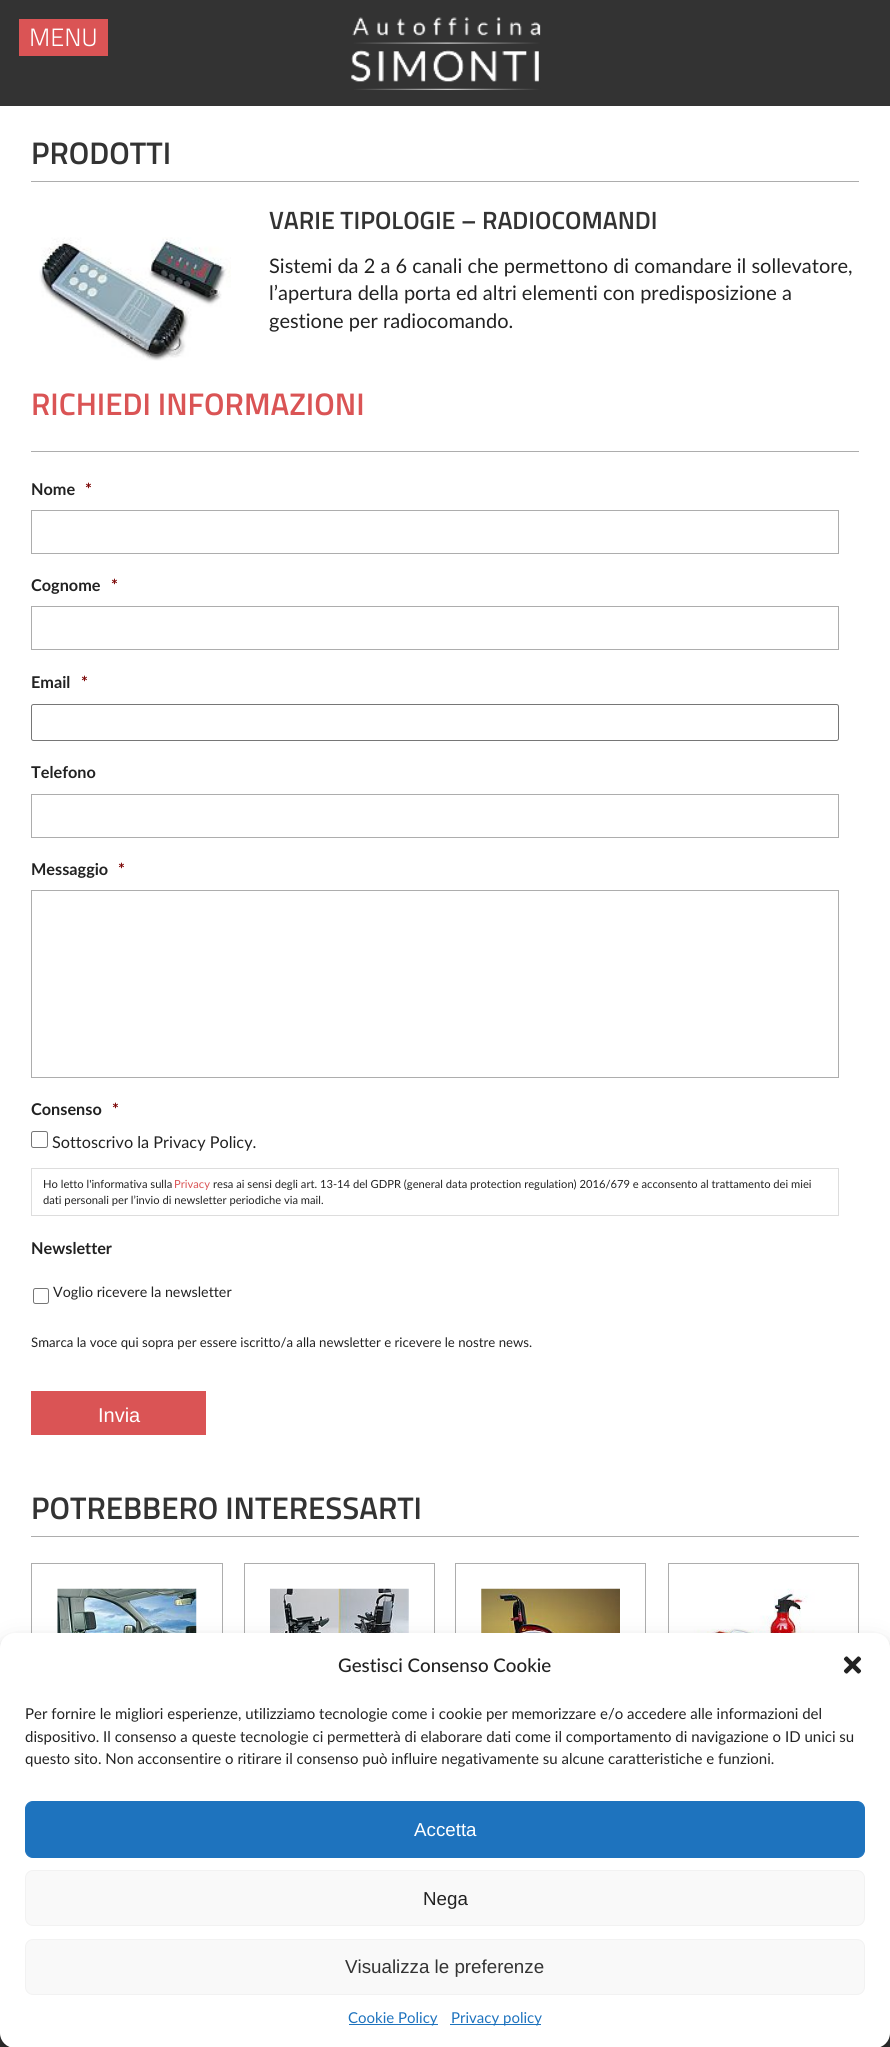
import math
import cairo

surface = cairo.ImageSurface(cairo.FORMAT_RGB24, 890, 2047)
cr = cairo.Context(surface)
options = cairo.FontOptions()
options.set_hint_metrics(cairo.HINT_METRICS_OFF)
options.set_hint_style(cairo.HINT_STYLE_NONE)
cr.set_font_options(options)
cr.set_miter_limit(4)


def rgb(code):
    cr.set_source_rgb(*(v / 255 for v in bytes.fromhex(code[-6:])))


def rrect(x, y, w, h, r):
    cr.new_sub_path()
    for i, (u, v) in enumerate([(x + w - r, y + h - r), (x + r, y + h - r), (x + r, y + r), (x + w - r, y + r)]):
        cr.arc(u, v, r, i * math.pi / 2, (i + 1) * math.pi / 2)
    cr.close_path()


def soft_shadow(x, y, w, h, r, blur, alpha):
    cr.push_group_with_content(cairo.CONTENT_ALPHA)
    cr.set_operator(cairo.OPERATOR_SOURCE)
    for i in range(15, -16, -2):
        e = blur * i / 6
        if min(w, h) + 2 * e > 0:
            cr.set_source_rgba(0, 0, 0, alpha * math.erfc((i - 1) / 8.5) / 2)
            rrect(x - e, y - e, w + 2 * e, h + 2 * e, max(0, min(r + e + blur * .6, min(w, h) / 2 + e)))
            cr.fill()
    cr.mask(cr.pop_group())


def image(path, x, y, w, h):
    cr.save()
    cr.set_source_surface(cairo.ImageSurface.create_from_png(path), x, y)
    cr.rectangle(x, y, w, h)
    cr.fill()
    cr.restore()


rgb("#ffffff")
cr.paint()
rgb("#333333")
cr.rectangle(0, 0, 890, 106)
cr.fill()
rgb("#da5455")
cr.rectangle(19, 19, 89, 37)
cr.fill()
image("img/1.png", 351, 17, 190, 73)
rgb("#adadad")
cr.rectangle(31, 181, 828, 1)
cr.fill()
image("img/2.png", 39, 237, 192, 124)
cr.rectangle(31, 451, 828, 1)
cr.fill()
cr.rectangle(31.5, 510.5, 807, 43)
cr.set_line_width(1)
cr.stroke()
cr.rectangle(31.5, 606.5, 807, 43)
cr.stroke()
rrect(31.5, 704.5, 807, 36, 2)
rgb("#767676")
cr.stroke()
cr.rectangle(31.5, 794.5, 807, 43)
rgb("#adadad")
cr.stroke()
cr.rectangle(31.5, 890.5, 807, 187)
cr.stroke()
rrect(31.5, 1131.5, 16, 16, 2)
rgb("#767676")
cr.stroke()
cr.rectangle(31.5, 1168.5, 807, 47)
rgb("#dddddd")
cr.stroke()
rrect(33.5, 1288.5, 15, 15, 2)
rgb("#767676")
cr.stroke()
rgb("#808080")
soft_shadow(803, 1955, 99, 75, 2.5, 3, 1)
rgb("#da5455")
cr.rectangle(31, 1391, 175, 44)
cr.fill()
rgb("#adadad")
cr.rectangle(31, 1536, 828, 1)
cr.fill()
cr.rectangle(31.5, 1563.5, 191, 349)
cr.stroke()
image("img/3.png", 57, 1588, 140, 45)
cr.rectangle(244.5, 1563.5, 190, 349)
cr.stroke()
image("img/4.png", 270, 1588, 139, 45)
cr.rectangle(455.5, 1563.5, 190, 349)
cr.stroke()
image("img/5.png", 481, 1588, 139, 45)
cr.rectangle(668.5, 1563.5, 190, 349)
cr.stroke()
image("img/6.png", 693, 1588, 133, 45)
cr.set_source_rgba(0, 0, 0, 0.8)
cr.rectangle(0, 2033, 890, 14)
cr.fill()
rgb("#000000")
soft_shadow(0, 1640, 890, 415, 15, 4, 0.23)
soft_shadow(0, 1645, 890, 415, 15, 12.5, 0.19)
rgb("#ffffff")
rrect(0, 1633, 890, 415, 15)
cr.fill()
image("img/7.png", 843, 1656, 19, 18)
rgb("#1e73be")
rrect(25.5, 1801.5, 839, 56, 7.5)
cr.fill_preserve()
cr.stroke()
rgb("#f9f9f9")
rrect(25.5, 1870.5, 839, 55, 7.5)
cr.fill_preserve()
rgb("#f2f2f2")
cr.stroke()
rgb("#f9f9f9")
rrect(25.5, 1939.5, 839, 55, 7.5)
cr.fill_preserve()
rgb("#f2f2f2")
cr.stroke()
rgb("#1e73be")
cr.rectangle(349, 2024, 89, 1)
cr.fill()
cr.rectangle(450, 2024, 91, 1)
cr.fill()
cr.select_font_face("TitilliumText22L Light")
cr.set_font_size(25)
rgb("#ffffff")
cr.move_to(29, 46)
cr.show_text("MENU")
cr.select_font_face("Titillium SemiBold")
cr.set_font_size(31.25)
rgb("#333333")
cr.move_to(31, 164)
cr.show_text("PRODOTTI")
cr.set_font_size(25)
cr.move_to(269, 229)
cr.show_text("VARIE TIPOLOGIE – RADIOCOMANDI")
cr.select_font_face("Lato")
cr.set_font_size(20)
rgb("#222222")
for x, y, s in [
    (269, 273, "Sistemi da 2 a 6 canali che permettono di comandare il sollevatore,"),
    (269, 300, "l’apertura della porta ed altri elementi con predisposizione a"),
    (269, 328, "gestione per radiocomando."),
]:
    cr.move_to(x, y)
    cr.show_text(s)
cr.select_font_face("Titillium SemiBold")
cr.set_font_size(31.25)
rgb("#da5455")
cr.move_to(31, 415)
cr.show_text("RICHIEDI INFORMAZIONI")
cr.select_font_face("Lato", cairo.FONT_SLANT_NORMAL, cairo.FONT_WEIGHT_BOLD)
cr.set_font_size(16.25)
rgb("#222222")
cr.move_to(31, 495)
cr.show_text("Nome")
rgb("#790000")
cr.move_to(85, 495)
cr.show_text("*")
rgb("#222222")
cr.move_to(31, 591)
cr.show_text("Cognome")
rgb("#790000")
cr.move_to(111, 591)
cr.show_text("*")
rgb("#222222")
cr.move_to(31, 688)
cr.show_text("Email")
rgb("#790000")
cr.move_to(81, 688)
cr.show_text("*")
rgb("#222222")
cr.move_to(31, 778)
cr.show_text("Telefono")
cr.move_to(31, 875)
cr.show_text("Messaggio")
rgb("#790000")
cr.move_to(118, 875)
cr.show_text("*")
rgb("#222222")
cr.move_to(31, 1115)
cr.show_text("Consenso")
rgb("#790000")
cr.move_to(112, 1115)
cr.show_text("*")
cr.select_font_face("Lato")
rgb("#222222")
cr.move_to(52, 1148)
cr.show_text("Sottoscrivo la Privacy Policy.")
cr.set_font_size(11.18)
cr.move_to(43, 1188)
cr.show_text("Ho letto l'informativa sulla")
rgb("#da5455")
cr.move_to(174, 1188)
cr.show_text("Privacy")
rgb("#222222")
cr.move_to(213, 1188)
cr.show_text("resa ai sensi degli art. 13-14 del GDPR (general data protection regulation) 2016/679 e acconsento al trattamento dei miei")
cr.move_to(43, 1204)
cr.show_text("dati personali per l’invio di newsletter periodiche via mail.")
cr.select_font_face("Lato", cairo.FONT_SLANT_NORMAL, cairo.FONT_WEIGHT_BOLD)
cr.set_font_size(16.25)
cr.move_to(31, 1254)
cr.show_text("Newsletter")
cr.select_font_face("Lato")
cr.set_font_size(14.25)
cr.move_to(53, 1297)
cr.show_text("Voglio ricevere la newsletter")
cr.set_font_size(13.2)
cr.move_to(31, 1347)
cr.show_text("Smarca la voce qui sopra per essere iscritto/a alla newsletter e ricevere le nostre news.")
cr.select_font_face("Liberation Sans")
cr.set_font_size(20)
rgb("#ffffff")
cr.move_to(98, 1422)
cr.show_text("Invia")
cr.select_font_face("Titillium SemiBold")
cr.set_font_size(31.25)
rgb("#333333")
cr.move_to(31, 1519)
cr.show_text("POTREBBERO INTERESSARTI")
cr.select_font_face("Lato Medium")
cr.set_font_size(18.75)
rgb("#222222")
cr.move_to(338, 1672)
cr.show_text("Gestisci Consenso Cookie")
cr.select_font_face("Lato")
cr.set_font_size(15)
for x, y, s in [
    (25, 1719, "Per fornire le migliori esperienze, utilizziamo tecnologie come i cookie per memorizzare e/o accedere alle informazioni del"),
    (25, 1742, "dispositivo. Il consenso a queste tecnologie ci permetterà di elaborare dati come il comportamento di navigazione o ID unici su"),
    (25, 1764, "questo sito. Non acconsentire o ritirare il consenso può influire negativamente su alcune caratteristiche e funzioni."),
]:
    cr.move_to(x, y)
    cr.show_text(s)
cr.select_font_face("Liberation Sans")
cr.set_font_size(18.75)
rgb("#ffffff")
cr.move_to(414, 1836)
cr.show_text("Accetta")
rgb("#222222")
cr.move_to(423, 1905)
cr.show_text("Nega")
rgb("#333333")
cr.move_to(345, 1973)
cr.show_text("Visualizza le preferenze")
cr.select_font_face("Lato")
cr.set_font_size(15)
rgb("#1e73be")
cr.move_to(348, 2023)
cr.show_text("Cookie Policy")
cr.move_to(451, 2023)
cr.show_text("Privacy policy")
surface.write_to_png("page.png")
